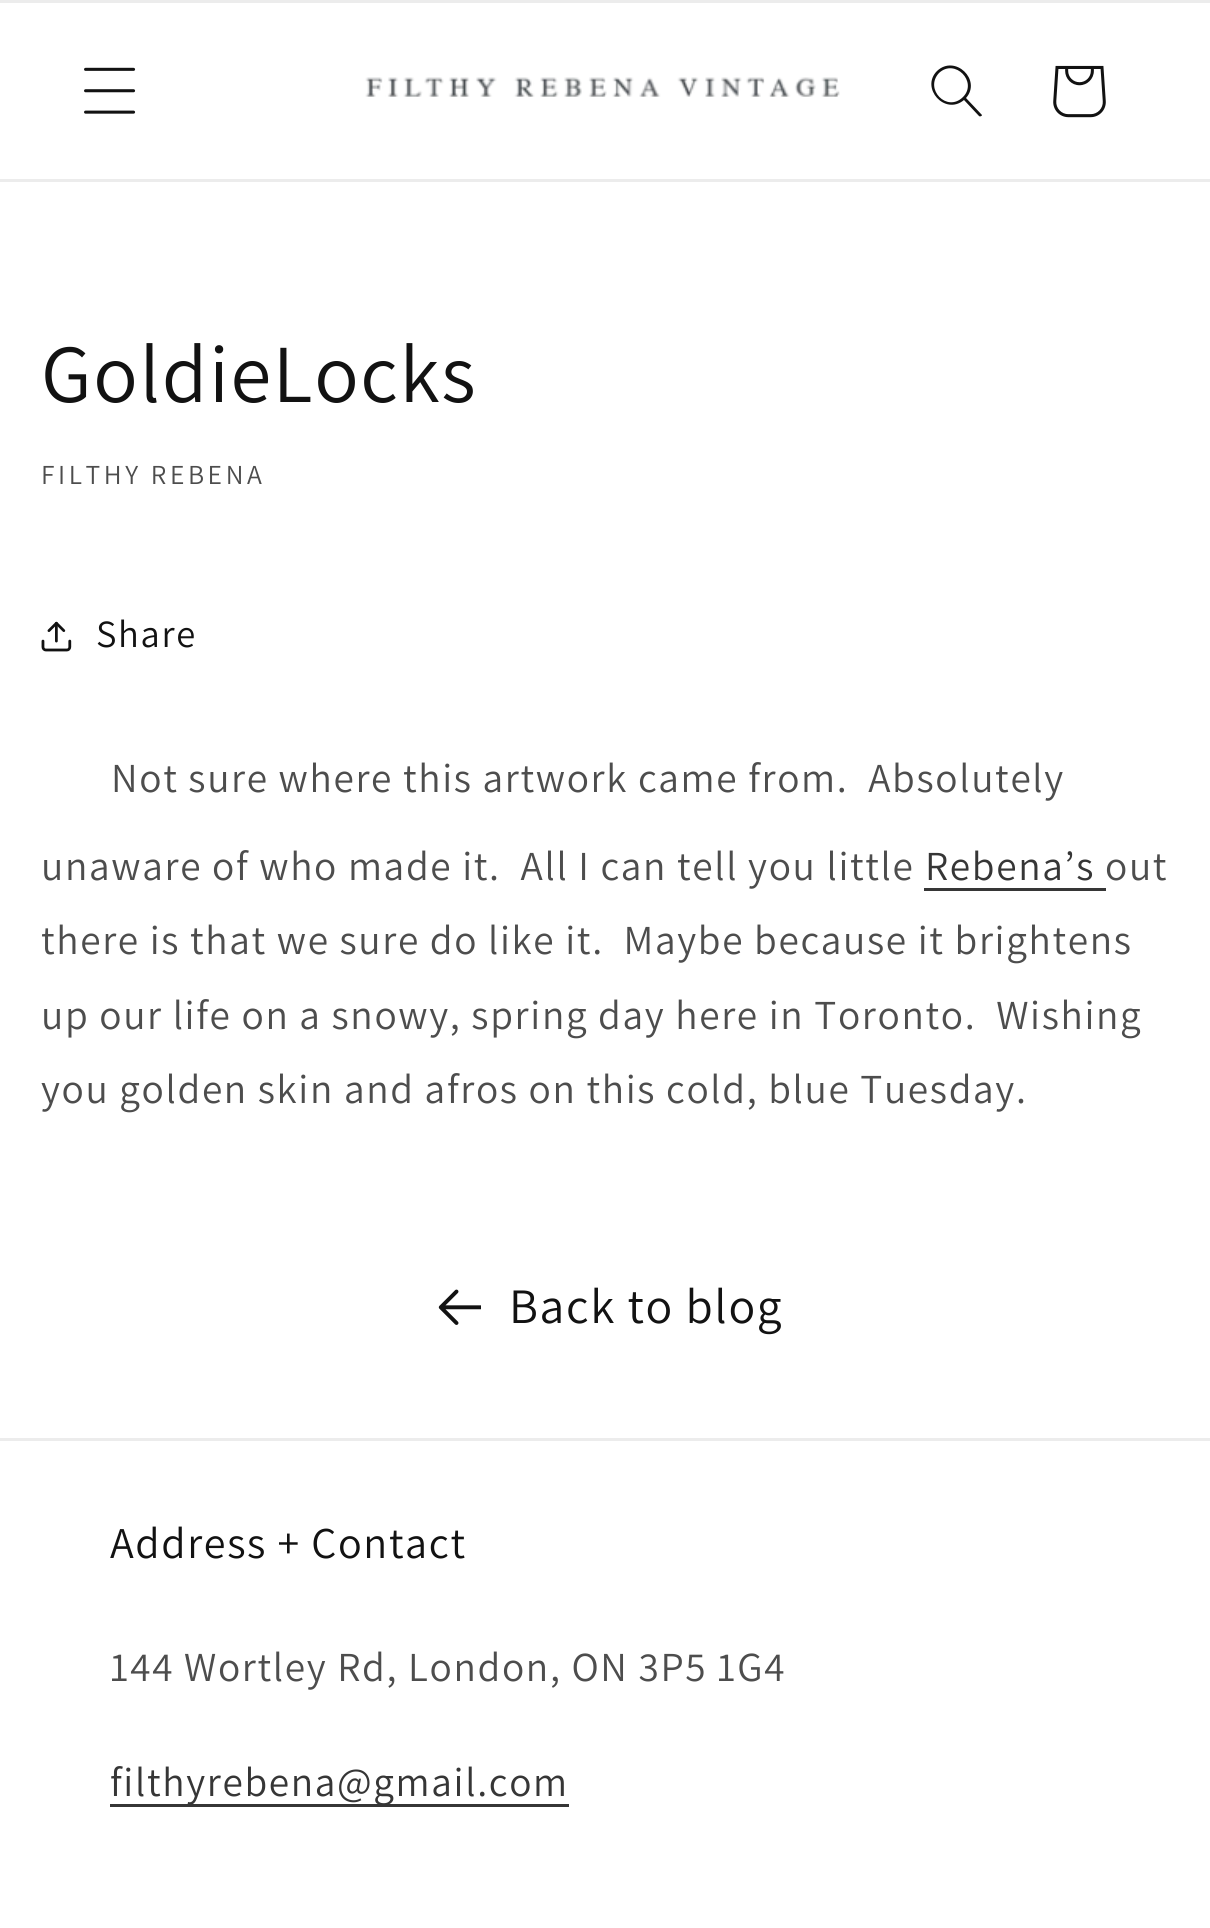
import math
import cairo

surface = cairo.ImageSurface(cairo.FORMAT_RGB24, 1210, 1928)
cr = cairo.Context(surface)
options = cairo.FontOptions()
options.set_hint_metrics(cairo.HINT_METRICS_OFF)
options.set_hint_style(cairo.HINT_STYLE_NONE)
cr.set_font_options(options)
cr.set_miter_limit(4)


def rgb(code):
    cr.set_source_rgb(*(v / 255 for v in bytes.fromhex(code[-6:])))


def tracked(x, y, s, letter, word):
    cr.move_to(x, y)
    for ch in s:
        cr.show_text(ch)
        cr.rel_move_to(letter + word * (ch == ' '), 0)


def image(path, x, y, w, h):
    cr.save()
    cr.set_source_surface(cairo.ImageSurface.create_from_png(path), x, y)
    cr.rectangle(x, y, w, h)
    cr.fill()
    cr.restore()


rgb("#ffffff")
cr.paint()
rgb("#ececec")
cr.rectangle(0, 0, 1210, 3)
cr.fill()
cr.rectangle(0, 179, 1210, 3)
cr.fill()
image("img/1.png", 84, 67, 52, 47)
image("img/2.png", 365, 77, 475, 20)
rgb("#121212")
cr.set_fill_rule(cairo.FILL_RULE_EVEN_ODD)
cr.new_path()
cr.move_to(963, 97)
cr.curve_to(947, 113, 924, 89, 939, 73)
cr.curve_to(955, 58, 978, 82, 963, 97)
cr.move_to(964, 100)
cr.curve_to(945, 116, 920, 88, 937, 71)
cr.curve_to(955, 54, 982, 80, 966, 98)
cr.line_to(982, 115)
cr.curve_to(982, 116, 980, 117, 979, 116)
cr.close_path()
cr.fill()
image("img/3.png", 1053, 65, 53, 53)
image("img/4.png", 41, 621, 31, 31)
rgb("#363636")
cr.rectangle(924, 888, 182, 3)
cr.fill()
image("img/5.png", 438, 1289, 43, 36)
rgb("#ececec")
cr.rectangle(0, 1438, 1210, 3)
cr.fill()
rgb("#363636")
cr.rectangle(110, 1804, 459, 3)
cr.fill()
cr.select_font_face("Assistant")
cr.set_font_size(82.5)
rgb("#121212")
tracked(41, 402, "GoldieLocks", 1.65, 0)
cr.set_font_size(27.5)
rgb("#4d4d4d")
tracked(41, 484, "FILTHY REBENA", 3.6, 0)
cr.set_font_size(38.5)
rgb("#121212")
tracked(96, 647, "Share", 1.65, 0)
cr.set_font_size(41.25)
rgb("#4d4d4d")
tracked(111, 792, "Not sure where this artwork came from.  Absolutely", 1.65, 0)
tracked(41, 880, "unaware of who made it.  All I can tell you little", 1.65, 0)
rgb("#363636")
tracked(925, 880, "Rebena’s", 1.65, 0)
rgb("#4d4d4d")
for x, y, s in [
    (1105, 880, "out"),
    (41, 954, "there is that we sure do like it.  Maybe because it brightens"),
    (41, 1029, "up our life on a snowy, spring day here in Toronto.  Wishing"),
    (41, 1103, "you golden skin and afros on this cold, blue Tuesday."),
]:
    tracked(x, y, s, 1.65, 0)
cr.set_font_size(49.5)
rgb("#121212")
tracked(509, 1323, "Back to blog", 1.65, 0)
cr.set_font_size(44)
tracked(110, 1558, "Address + Contact", 1.65, 0)
cr.set_font_size(41.25)
rgb("#4d4d4d")
tracked(110, 1681, "144 Wortley Rd, London, ON 3P5 1G4", 1.65, 0)
rgb("#363636")
tracked(110, 1796, "filthyrebena@gmail.com", 1.65, 0)
surface.write_to_png("page.png")
